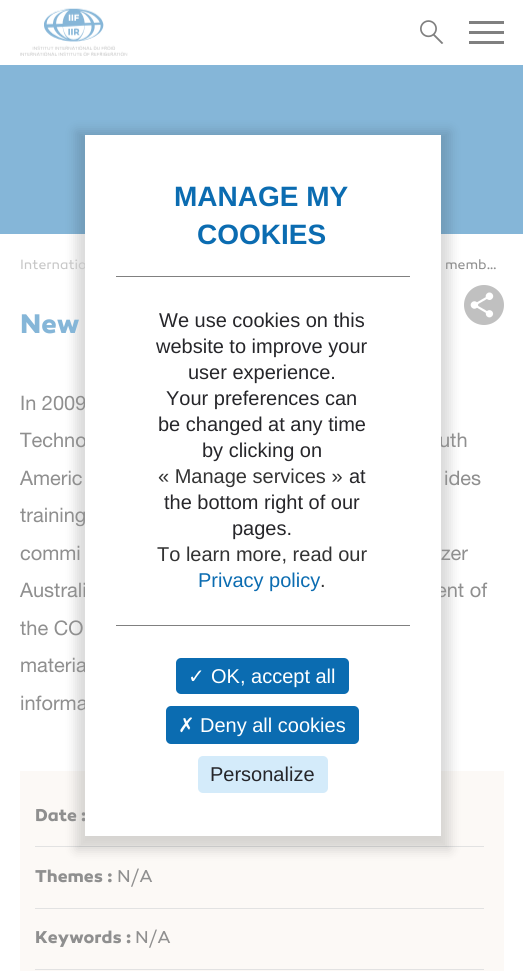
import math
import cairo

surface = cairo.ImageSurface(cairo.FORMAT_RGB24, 523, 971)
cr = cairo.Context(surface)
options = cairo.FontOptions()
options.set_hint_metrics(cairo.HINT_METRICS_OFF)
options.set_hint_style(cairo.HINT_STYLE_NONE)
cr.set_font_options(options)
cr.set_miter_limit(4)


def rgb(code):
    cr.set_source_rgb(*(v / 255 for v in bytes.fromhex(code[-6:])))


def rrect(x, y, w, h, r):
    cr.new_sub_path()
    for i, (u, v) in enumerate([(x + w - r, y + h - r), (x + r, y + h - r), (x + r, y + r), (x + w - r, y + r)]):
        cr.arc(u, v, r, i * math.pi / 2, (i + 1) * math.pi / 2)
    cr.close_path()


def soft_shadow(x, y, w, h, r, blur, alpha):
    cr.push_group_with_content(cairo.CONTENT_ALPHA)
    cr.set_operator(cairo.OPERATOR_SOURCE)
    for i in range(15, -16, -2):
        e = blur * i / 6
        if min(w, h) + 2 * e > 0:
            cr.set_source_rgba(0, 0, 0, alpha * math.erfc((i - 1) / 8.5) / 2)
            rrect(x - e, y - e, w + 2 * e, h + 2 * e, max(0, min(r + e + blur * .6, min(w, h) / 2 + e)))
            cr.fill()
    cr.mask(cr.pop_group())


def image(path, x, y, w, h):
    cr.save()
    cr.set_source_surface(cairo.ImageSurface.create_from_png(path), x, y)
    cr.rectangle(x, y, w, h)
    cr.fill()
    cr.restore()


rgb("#ffffff")
cr.paint()
image("img/1.png", 20, 8, 108, 48)
image("img/2.png", 420, 20, 24, 24)
for x, y, w, h, color in [
    (469, 21, 35, 3, "#808080"),
    (469, 31, 35, 3, "#808080"),
    (469, 41, 35, 3, "#808080"),
    (0, 65, 523, 169, "#85b6d8"),
]:
    rgb(color)
    cr.rectangle(x, y, w, h)
    cr.fill()
image("img/3.png", 464, 285, 40, 40)
rgb("#fcf9f6")
cr.rectangle(20, 771, 484, 200)
cr.fill()
rgb("#e2e2e2")
cr.rectangle(35, 846, 449, 1)
cr.fill()
rgb("#000000")
soft_shadow(76, 131, 374, 719, 0, 6, 0.15)
rgb("#e2e2e2")
cr.rectangle(35, 908, 449, 1)
cr.fill()
cr.rectangle(35, 969, 449, 1)
cr.fill()
cr.select_font_face("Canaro")
cr.set_font_size(13.75)
rgb("#c7c7c7")
cr.move_to(20, 269)
cr.show_text("Internatio")
rgb("#8f8f8f")
cr.move_to(445, 269)
cr.show_text("memb…")
cr.select_font_face("Canaro", cairo.FONT_SLANT_NORMAL, cairo.FONT_WEIGHT_BOLD)
cr.set_font_size(27.5)
rgb("#85b6d8")
cr.move_to(20, 333)
cr.show_text("New")
cr.select_font_face("Helvetica Neue")
cr.set_font_size(20)
rgb("#8f8f8f")
for x, y, s in [
    (20, 410, "In 2009"),
    (20, 447, "Techno"),
    (439, 447, "uth"),
    (20, 485, "Americ"),
    (444, 485, "ides"),
    (20, 522, "training"),
    (20, 560, "commi"),
    (441, 560, "zer"),
    (20, 597, "Australi"),
    (436, 597, "ent of"),
    (20, 635, "the CO"),
    (20, 672, "materia"),
    (20, 710, "informa"),
]:
    cr.move_to(x, y)
    cr.show_text(s)
cr.select_font_face("Canaro", cairo.FONT_SLANT_NORMAL, cairo.FONT_WEIGHT_BOLD)
cr.set_font_size(17.5)
cr.move_to(35, 821)
cr.show_text("Date :")
rgb("#ffffff")
cr.rectangle(85, 135, 356, 701)
cr.fill()
rgb("#d4ebfa")
rrect(198, 756, 130, 37, 5)
cr.fill()
cr.select_font_face("Liberation Sans")
cr.set_font_size(20)
rgb("#26262a")
cr.move_to(210, 781)
cr.show_text("Personalize")
rgb("#0b6cb1")
rrect(166, 706, 193, 38, 5)
cr.fill()
rgb("#ffffff")
cr.move_to(200, 732)
cr.show_text("Deny all cookies")
cr.select_font_face("DejaVu Sans")
cr.move_to(178, 732)
cr.show_text("✗")
rgb("#0b6cb1")
rrect(176, 658, 173, 36, 5)
cr.fill()
cr.select_font_face("Liberation Sans")
rgb("#ffffff")
cr.move_to(211, 683)
cr.show_text("OK, accept all")
cr.select_font_face("DejaVu Sans")
cr.move_to(188, 683)
cr.show_text("✓")
cr.select_font_face("Liberation Sans")
rgb("#333333")
cr.move_to(320, 587)
cr.show_text(".")
rgb("#0b6cb1")
cr.move_to(198, 587)
cr.show_text("Privacy policy")
rgb("#333333")
cr.move_to(157, 561)
cr.show_text("To learn more, read our")
rgb("#26262a")
for x, y, s in [
    (232, 535, "pages."),
    (164, 509, "the bottom right of our"),
    (349, 483, "at"),
]:
    cr.move_to(x, y)
    cr.show_text(s)
rgb("#333333")
cr.move_to(158, 483)
cr.show_text("« Manage services »")
rgb("#26262a")
for x, y, s in [
    (202, 457, "by clicking on"),
    (158, 431, "be changed at any time"),
    (166, 405, "Your preferences can"),
    (188, 379, "user experience."),
    (156, 353, "website to improve your"),
    (159, 327, "We use cookies on this"),
]:
    cr.move_to(x, y)
    cr.show_text(s)
cr.select_font_face("Liberation Sans", cairo.FONT_SLANT_NORMAL, cairo.FONT_WEIGHT_BOLD)
cr.set_font_size(28)
rgb("#0b6cb1")
cr.move_to(197, 244)
cr.show_text("COOKIES")
cr.move_to(174, 206)
cr.show_text("MANAGE MY")
rgb("#808080")
cr.rectangle(116, 625, 294, 1)
cr.fill()
cr.rectangle(116, 276, 294, 1)
cr.fill()
cr.select_font_face("Canaro", cairo.FONT_SLANT_NORMAL, cairo.FONT_WEIGHT_BOLD)
cr.set_font_size(17.5)
rgb("#8f8f8f")
cr.move_to(35, 882)
cr.show_text("Themes :")
cr.select_font_face("Canaro")
cr.move_to(117, 882)
cr.show_text("N/A")
cr.select_font_face("Canaro", cairo.FONT_SLANT_NORMAL, cairo.FONT_WEIGHT_BOLD)
cr.move_to(35, 943)
cr.show_text("Keywords :")
cr.select_font_face("Canaro")
cr.move_to(135, 943)
cr.show_text("N/A")
surface.write_to_png("page.png")
